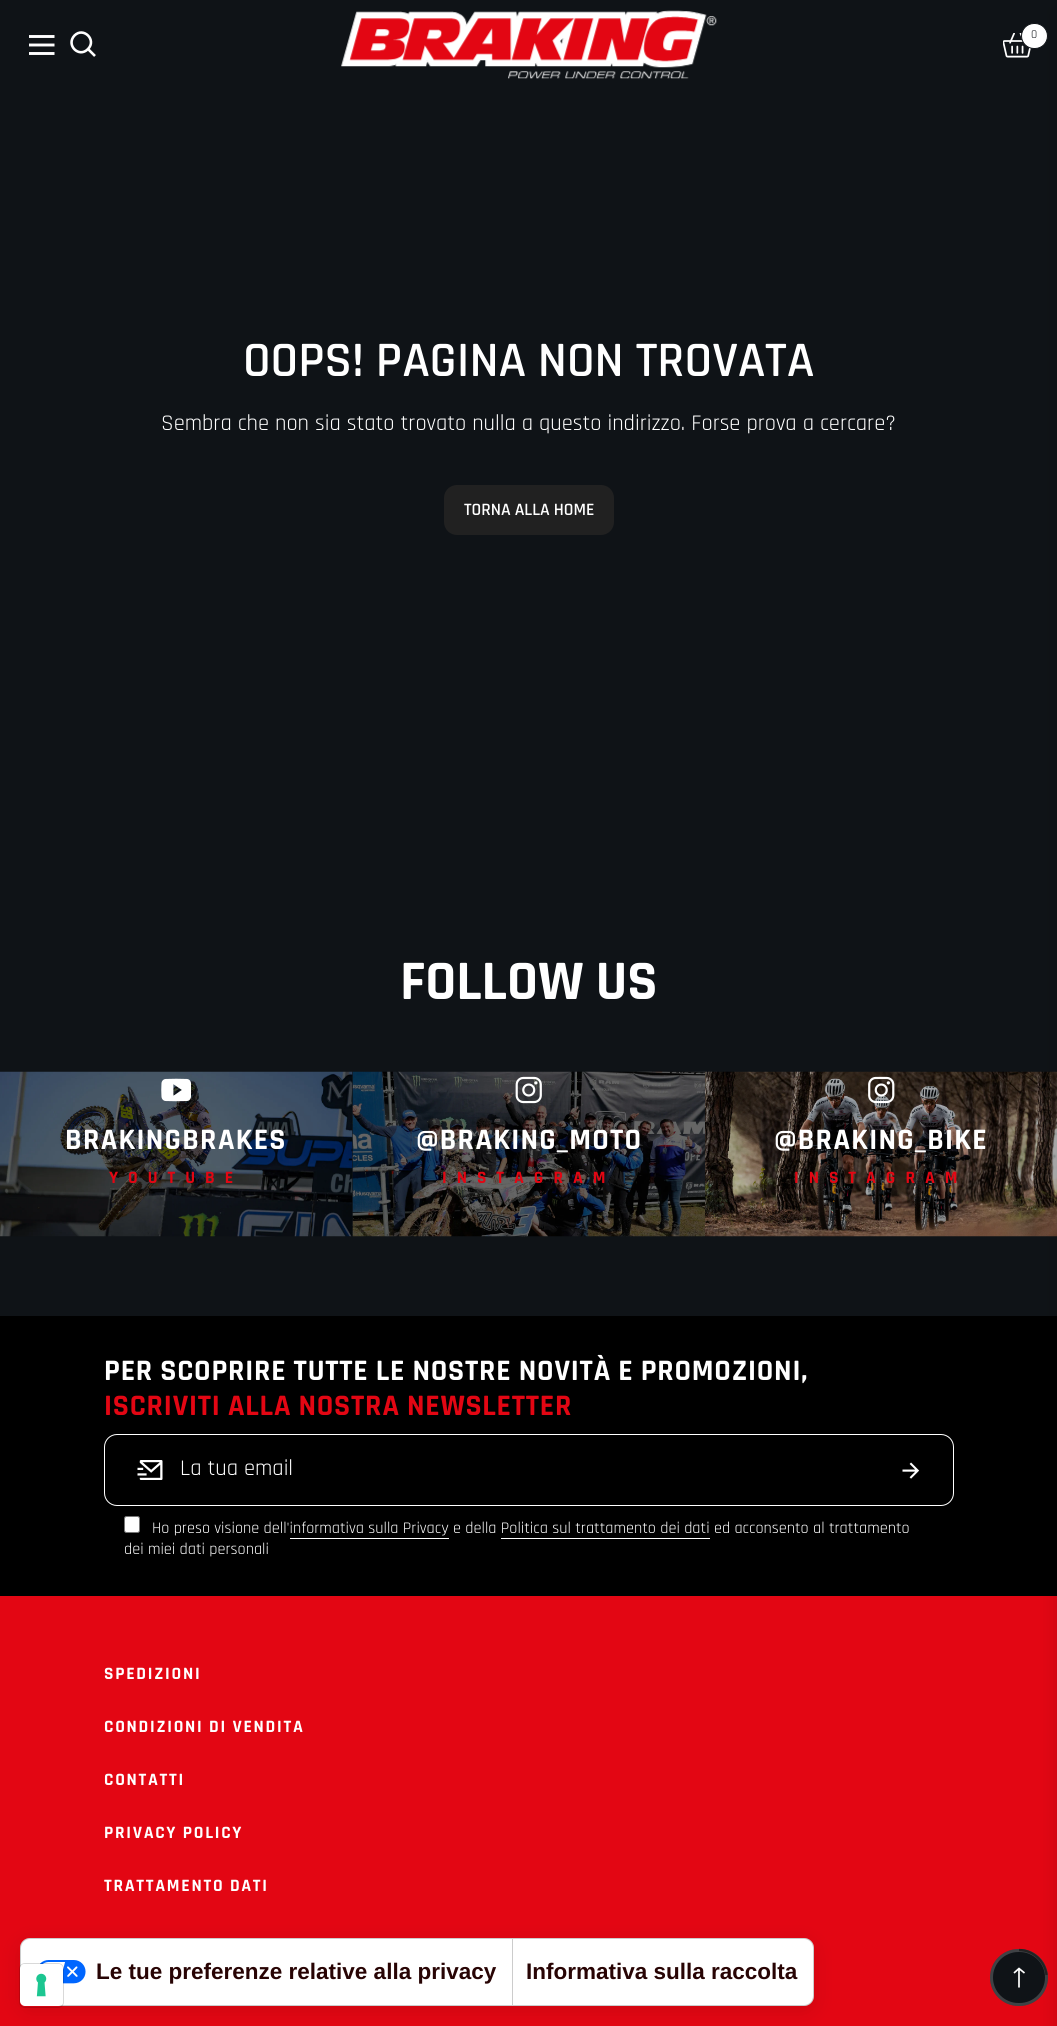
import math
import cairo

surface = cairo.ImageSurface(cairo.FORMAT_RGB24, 1057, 2026)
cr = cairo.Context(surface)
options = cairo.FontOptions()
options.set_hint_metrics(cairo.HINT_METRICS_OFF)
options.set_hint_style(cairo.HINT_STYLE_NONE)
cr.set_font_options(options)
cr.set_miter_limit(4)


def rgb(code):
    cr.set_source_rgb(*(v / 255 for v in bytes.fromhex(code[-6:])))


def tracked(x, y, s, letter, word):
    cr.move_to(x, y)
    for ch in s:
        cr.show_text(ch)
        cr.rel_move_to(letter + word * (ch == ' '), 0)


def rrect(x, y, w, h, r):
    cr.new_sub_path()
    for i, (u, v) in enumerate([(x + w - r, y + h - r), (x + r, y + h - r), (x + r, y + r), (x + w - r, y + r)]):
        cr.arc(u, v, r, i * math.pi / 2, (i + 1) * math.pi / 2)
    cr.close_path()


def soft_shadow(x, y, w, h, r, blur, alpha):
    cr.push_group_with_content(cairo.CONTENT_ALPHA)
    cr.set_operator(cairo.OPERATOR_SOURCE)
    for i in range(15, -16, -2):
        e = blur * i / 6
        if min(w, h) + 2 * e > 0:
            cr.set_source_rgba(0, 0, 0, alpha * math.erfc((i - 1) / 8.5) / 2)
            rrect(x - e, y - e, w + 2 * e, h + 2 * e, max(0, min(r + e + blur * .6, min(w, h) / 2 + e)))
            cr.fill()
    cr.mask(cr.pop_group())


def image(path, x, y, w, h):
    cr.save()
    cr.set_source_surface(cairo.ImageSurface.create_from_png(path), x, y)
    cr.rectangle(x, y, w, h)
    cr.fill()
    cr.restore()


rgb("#0f1317")
cr.paint()
cr.new_path()
cr.move_to(29, 36.5)
cr.line_to(54.5, 36.5)
cr.move_to(29, 53.5)
cr.line_to(54.5, 53.5)
cr.close_path()
cr.move_to(29, 45)
cr.line_to(54.5, 45)
cr.close_path()
rgb("#ffffff")
cr.set_line_width(2.9)
cr.stroke()
cr.new_path()
cr.move_to(88, 49)
cr.curve_to(97, 40, 83.5, 26.5, 74.5, 35.5)
cr.curve_to(65.5, 45, 79, 58.5, 88, 49)
cr.close_path()
cr.move_to(88, 49)
cr.line_to(95, 56)
cr.set_line_width(2.6)
cr.stroke()
image("img/1.png", 341, 10, 376, 69)
image("img/2.png", 1003, 33, 28, 25)
rrect(1021.5, 23.5, 26, 25, 12.5)
cr.fill_preserve()
rgb("#0f1317")
cr.set_line_width(1)
cr.stroke()
image("img/7.png", 705, 1071, 352, 166)
rgb("#000000")
cr.rectangle(0, 1316, 1057, 280)
cr.fill()
rgb("#e30613")
cr.rectangle(0, 1596, 1057, 430)
cr.fill()
rgb("#0f1317")
rrect(990, 1949, 58, 57, 28.5)
cr.fill()
rrect(991.5, 1950.5, 55, 54, 27)
cr.set_source_rgba(1, 1, 1, 0.2)
cr.set_line_width(3)
cr.stroke()
cr.new_path()
cr.move_to(1019, 1950)
cr.curve_to(1033, 1950, 1045, 1961, 1046.5, 1975)
rgb("#222222")
cr.set_line_width(2.3)
cr.stroke()
rgb("#000000")
soft_shadow(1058, 10, 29, 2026, 0, 10, 0.15)
rgb("#212121")
rrect(444, 485, 170, 50, 13)
cr.fill()
image("img/3.png", 0, 1071, 353, 166)
image("img/4.png", 161, 1078, 30, 24)
image("img/5.png", 352, 1071, 353, 166)
image("img/6.png", 515, 1076, 27, 28)
image("img/8.png", 868, 1076, 27, 28)
rrect(104.5, 1434.5, 849, 71, 12.5)
rgb("#ffffff")
cr.set_line_width(1)
cr.stroke()
image("img/9.png", 137, 1460, 26, 20)
image("img/10.png", 902, 1462, 18, 17)
rrect(124.5, 1516.5, 15, 16, 2)
cr.fill_preserve()
rgb("#767676")
cr.stroke()
rgb("#ffffff")
cr.rectangle(290, 1538, 159, 1)
cr.fill()
cr.rectangle(501, 1538, 209, 1)
cr.fill()
rgb("#000000")
soft_shadow(20, 1943, 794, 68, 10, 10, 0.1)
rgb("#ffffff")
rrect(20, 1938, 794, 68, 10)
cr.fill()
rrect(20.5, 1938.5, 793, 67, 9.5)
cr.set_source_rgba(0, 0, 0, 0.2)
cr.stroke()
image("img/12.png", 40, 1960, 46, 24)
rrect(19.5, 1963.5, 44, 44, 5.5)
cr.set_source_rgba(0, 0, 0, 0.15)
cr.stroke()
rgb("#ffffff")
rrect(20, 1964, 43, 42, 5)
cr.fill()
image("img/11.png", 36, 1973, 11, 24)
rgb("#cccccc")
cr.rectangle(512, 1939, 1, 66)
cr.fill()
cr.save()
cr.new_path()
cr.move_to(1009, 1987.5)
cr.line_to(1009, 1967.5)
cr.line_to(1029, 1967.5)
cr.line_to(1029, 1987.5)
cr.close_path()
cr.clip()
cr.new_path()
cr.move_to(1024.5, 1973)
cr.line_to(1019, 1968.5)
cr.line_to(1014, 1973)
cr.move_to(1019, 1968.5)
cr.line_to(1019, 1987.5)
rgb("#ffffff")
cr.set_line_width(1.7)
cr.stroke()
cr.restore()
cr.select_font_face("Rajdhani")
cr.set_font_size(12)
rgb("#0f1317")
cr.move_to(1031, 38)
cr.show_text("0")
cr.select_font_face("Rajdhani SemiBold")
cr.set_font_size(50)
rgb("#ffffff")
cr.move_to(243, 376)
cr.show_text("OOPS! PAGINA NON TROVATA")
cr.select_font_face("Rajdhani")
cr.set_font_size(22.5)
cr.move_to(161, 430)
cr.show_text("Sembra che non sia stato trovato nulla a questo indirizzo. Forse prova a cercare?")
cr.select_font_face("Rajdhani SemiBold")
cr.set_font_size(17.5)
cr.move_to(464, 515)
cr.show_text("TORNA ALLA HOME")
cr.select_font_face("Rajdhani", cairo.FONT_SLANT_NORMAL, cairo.FONT_WEIGHT_BOLD)
cr.set_font_size(56.25)
cr.move_to(400, 999)
cr.show_text("FOLLOW US")
cr.set_font_size(30)
tracked(65, 1149, "BRAKINGBRAKES", 1.25, 0)
cr.set_font_size(17.5)
rgb("#e30613")
tracked(109, 1183, "YOUTUBE", 10, 0)
cr.set_font_size(30)
rgb("#ffffff")
tracked(416, 1149, "@BRAKING_MOTO", 1.25, 0)
cr.set_font_size(17.5)
rgb("#e30613")
tracked(442, 1183, "INSTAGRAM", 10, 0)
cr.set_font_size(30)
rgb("#ffffff")
tracked(774, 1149, "@BRAKING_BIKE", 1.25, 0)
cr.set_font_size(17.5)
rgb("#e30613")
tracked(794, 1183, "INSTAGRAM", 10, 0)
cr.set_font_size(30)
rgb("#ffffff")
tracked(104, 1380, "PER SCOPRIRE TUTTE LE NOSTRE NOVITÀ E PROMOZIONI,", 0.75, 0)
rgb("#e30613")
tracked(104, 1415, "ISCRIVITI ALLA NOSTRA NEWSLETTER", 0.75, 0)
cr.select_font_face("Rajdhani")
cr.set_font_size(22.5)
rgb("#ffffff")
cr.move_to(180, 1475)
cr.show_text("La tua email")
cr.set_font_size(16.25)
cr.move_to(152, 1533)
cr.show_text("Ho preso visione dell'informativa sulla Privacy e della Politica sul trattamento dei dati ed acconsento al trattamento")
cr.move_to(124, 1554)
cr.show_text("dei miei dati personali")
cr.select_font_face("Rajdhani", cairo.FONT_SLANT_NORMAL, cairo.FONT_WEIGHT_BOLD)
cr.set_font_size(17.5)
for x, y, s in [
    (104, 1679, "SPEDIZIONI"),
    (104, 1732, "CONDIZIONI DI VENDITA"),
    (104, 1785, "CONTATTI"),
    (104, 1838, "PRIVACY POLICY"),
    (104, 1891, "TRATTAMENTO DATI"),
]:
    tracked(x, y, s, 1.75, 0)
cr.select_font_face("Liberation Sans", cairo.FONT_SLANT_NORMAL, cairo.FONT_WEIGHT_BOLD)
cr.set_font_size(22.5)
rgb("#280404")
cr.move_to(96, 1979)
cr.show_text("Le tue preferenze relative alla privacy")
cr.move_to(526, 1979)
cr.show_text("Informativa sulla raccolta")
surface.write_to_png("page.png")
